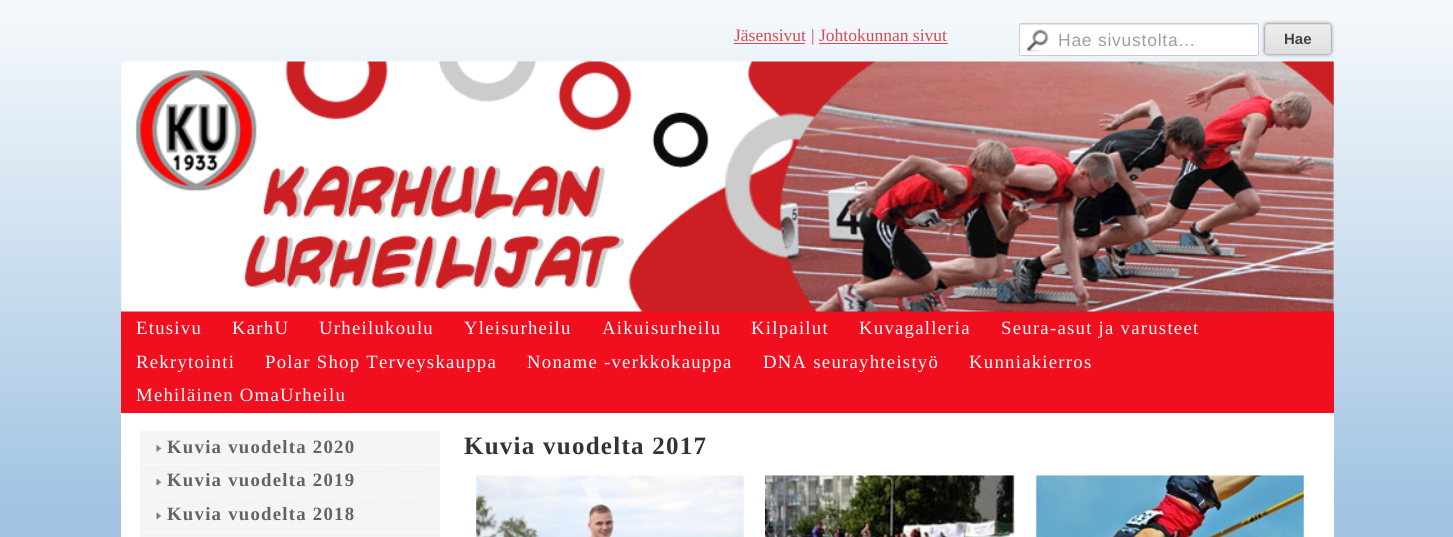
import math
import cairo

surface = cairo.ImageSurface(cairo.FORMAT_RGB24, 1453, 537)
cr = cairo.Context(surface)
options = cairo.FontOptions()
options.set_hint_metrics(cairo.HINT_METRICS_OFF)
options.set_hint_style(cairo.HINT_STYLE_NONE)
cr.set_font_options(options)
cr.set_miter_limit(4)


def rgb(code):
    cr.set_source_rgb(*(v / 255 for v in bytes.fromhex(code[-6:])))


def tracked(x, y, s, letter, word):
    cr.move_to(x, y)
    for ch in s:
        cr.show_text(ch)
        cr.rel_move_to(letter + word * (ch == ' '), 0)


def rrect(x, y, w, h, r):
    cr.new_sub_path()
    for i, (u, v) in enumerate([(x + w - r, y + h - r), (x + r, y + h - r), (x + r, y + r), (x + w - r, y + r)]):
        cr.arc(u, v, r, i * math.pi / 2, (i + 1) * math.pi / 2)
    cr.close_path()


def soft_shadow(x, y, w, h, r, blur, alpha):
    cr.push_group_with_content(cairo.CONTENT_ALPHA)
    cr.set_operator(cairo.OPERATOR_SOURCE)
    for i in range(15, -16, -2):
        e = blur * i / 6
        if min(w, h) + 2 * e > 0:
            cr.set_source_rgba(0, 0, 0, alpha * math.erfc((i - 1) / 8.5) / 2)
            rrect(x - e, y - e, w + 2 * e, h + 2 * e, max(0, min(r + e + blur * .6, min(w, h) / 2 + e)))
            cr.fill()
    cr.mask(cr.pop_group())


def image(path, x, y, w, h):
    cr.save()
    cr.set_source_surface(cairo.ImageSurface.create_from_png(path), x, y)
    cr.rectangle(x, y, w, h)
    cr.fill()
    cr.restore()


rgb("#ffffff")
cr.paint()
gradient = cairo.LinearGradient(727, -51, 727, 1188)
gradient.add_color_stop_rgba(0, 1, 1, 1, 1)
gradient.add_color_stop_rgba(0.45, 0.635, 0.769, 0.886, 1)
gradient.add_color_stop_rgba(1, 0.635, 0.769, 0.886, 1)
cr.set_source(gradient)
cr.rectangle(0, 0, 1453, 537)
cr.fill()
rgb("#d24b55")
cr.rectangle(734, 43, 71, 1)
cr.fill()
cr.rectangle(819, 43, 129, 1)
cr.fill()
rgb("#ffffff")
rrect(1019, 23, 240, 33, 2.5)
cr.fill()
image("img/1.png", 1026, 29, 23, 23)
rgb("#e6e6e6")
cr.new_path()
cr.move_to(1021, 25)
cr.line_to(1256, 25)
cr.line_to(1258, 26)
cr.curve_to(1258, 25, 1258, 24, 1257, 24)
cr.line_to(1020, 24)
cr.line_to(1020, 26)
cr.close_path()
cr.fill()
rrect(1019.5, 23.5, 239, 32, 2)
rgb("#cccccc")
cr.set_line_width(1)
cr.stroke()
rgb("#666666")
soft_shadow(1265, 24, 66, 30, 2.5, 2, 1)
cr.save()
rrect(1265, 24, 66, 30, 2.5)
cr.clip()
gradient = cairo.LinearGradient(1266, 25, 1266, 53)
gradient.add_color_stop_rgba(0.05, 0.929, 0.929, 0.929, 1)
gradient.add_color_stop_rgba(1, 0.875, 0.875, 0.875, 1)
cr.set_source(gradient)
cr.rectangle(1265, 25, 66, 28)
cr.fill()
cr.restore()
rrect(1265.5, 24.5, 65, 29, 2)
rgb("#dcdcdc")
cr.stroke()
rgb("#f10e1f")
cr.rectangle(121, 311, 1213, 102)
cr.fill()
image("img/2.png", 121, 61, 1213, 251)
rgb("#ffffff")
cr.rectangle(121, 413, 1213, 124)
cr.fill()
rgb("#f5f5f5")
cr.rectangle(140, 431, 300, 34)
cr.fill()
cr.new_path()
cr.move_to(140, 464.5)
cr.line_to(440, 464.5)
rgb("#ffffff")
cr.set_line_width(1.2)
cr.set_dash([1.25, 1.25])
cr.stroke()
image("img/3.png", 156, 445, 6, 7)
rgb("#f5f5f5")
cr.rectangle(140, 465, 300, 72)
cr.fill()
cr.new_path()
cr.move_to(140, 498)
cr.line_to(440, 498)
rgb("#ffffff")
cr.stroke()
image("img/4.png", 156, 479, 6, 7)
cr.new_path()
cr.move_to(140, 532)
cr.line_to(440, 532)
cr.stroke()
image("img/5.png", 156, 512, 6, 7)
image("img/6.png", 476, 475, 268, 62)
image("img/7.png", 765, 475, 250, 62)
image("img/8.png", 1036, 475, 268, 62)
cr.select_font_face("Liberation Serif")
cr.set_font_size(17.5)
rgb("#d24b55")
for x, y, s in [
    (734, 41, "Jäsensivut"),
    (811, 41, "|"),
    (819, 41, "Johtokunnan sivut"),
]:
    cr.move_to(x, y)
    cr.show_text(s)
cr.select_font_face("Liberation Sans")
rgb("#9f9f9f")
tracked(1058, 46, "Hae sivustolta...", 0.75, 0)
cr.select_font_face("Liberation Sans", cairo.FONT_SLANT_NORMAL, cairo.FONT_WEIGHT_BOLD)
cr.set_font_size(15)
rgb("#444444")
cr.move_to(1284, 44)
cr.show_text("Hae")
cr.select_font_face("Liberation Serif")
cr.set_font_size(18.75)
rgb("#ffffff")
for x, y, s in [
    (136, 334, "Etusivu"),
    (232, 334, "KarhU"),
    (319, 334, "Urheilukoulu"),
    (464, 334, "Yleisurheilu"),
    (602, 334, "Aikuisurheilu"),
    (751, 334, "Kilpailut"),
    (859, 334, "Kuvagalleria"),
    (1001, 334, "Seura-asut ja varusteet"),
    (136, 368, "Rekrytointi"),
    (265, 368, "Polar Shop Terveyskauppa"),
    (527, 368, "Noname -verkkokauppa"),
    (763, 368, "DNA seurayhteistyö"),
    (969, 368, "Kunniakierros"),
    (136, 401, "Mehiläinen OmaUrheilu"),
]:
    tracked(x, y, s, 1.25, 0)
cr.select_font_face("Liberation Serif", cairo.FONT_SLANT_NORMAL, cairo.FONT_WEIGHT_BOLD)
rgb("#636363")
for x, y, s in [
    (167, 453, "Kuvia vuodelta 2020"),
    (167, 486, "Kuvia vuodelta 2019"),
    (167, 520, "Kuvia vuodelta 2018"),
]:
    tracked(x, y, s, 1.25, 0)
cr.set_font_size(25)
rgb("#333333")
tracked(464, 454, "Kuvia vuodelta 2017", 1.25, 0)
surface.write_to_png("page.png")
